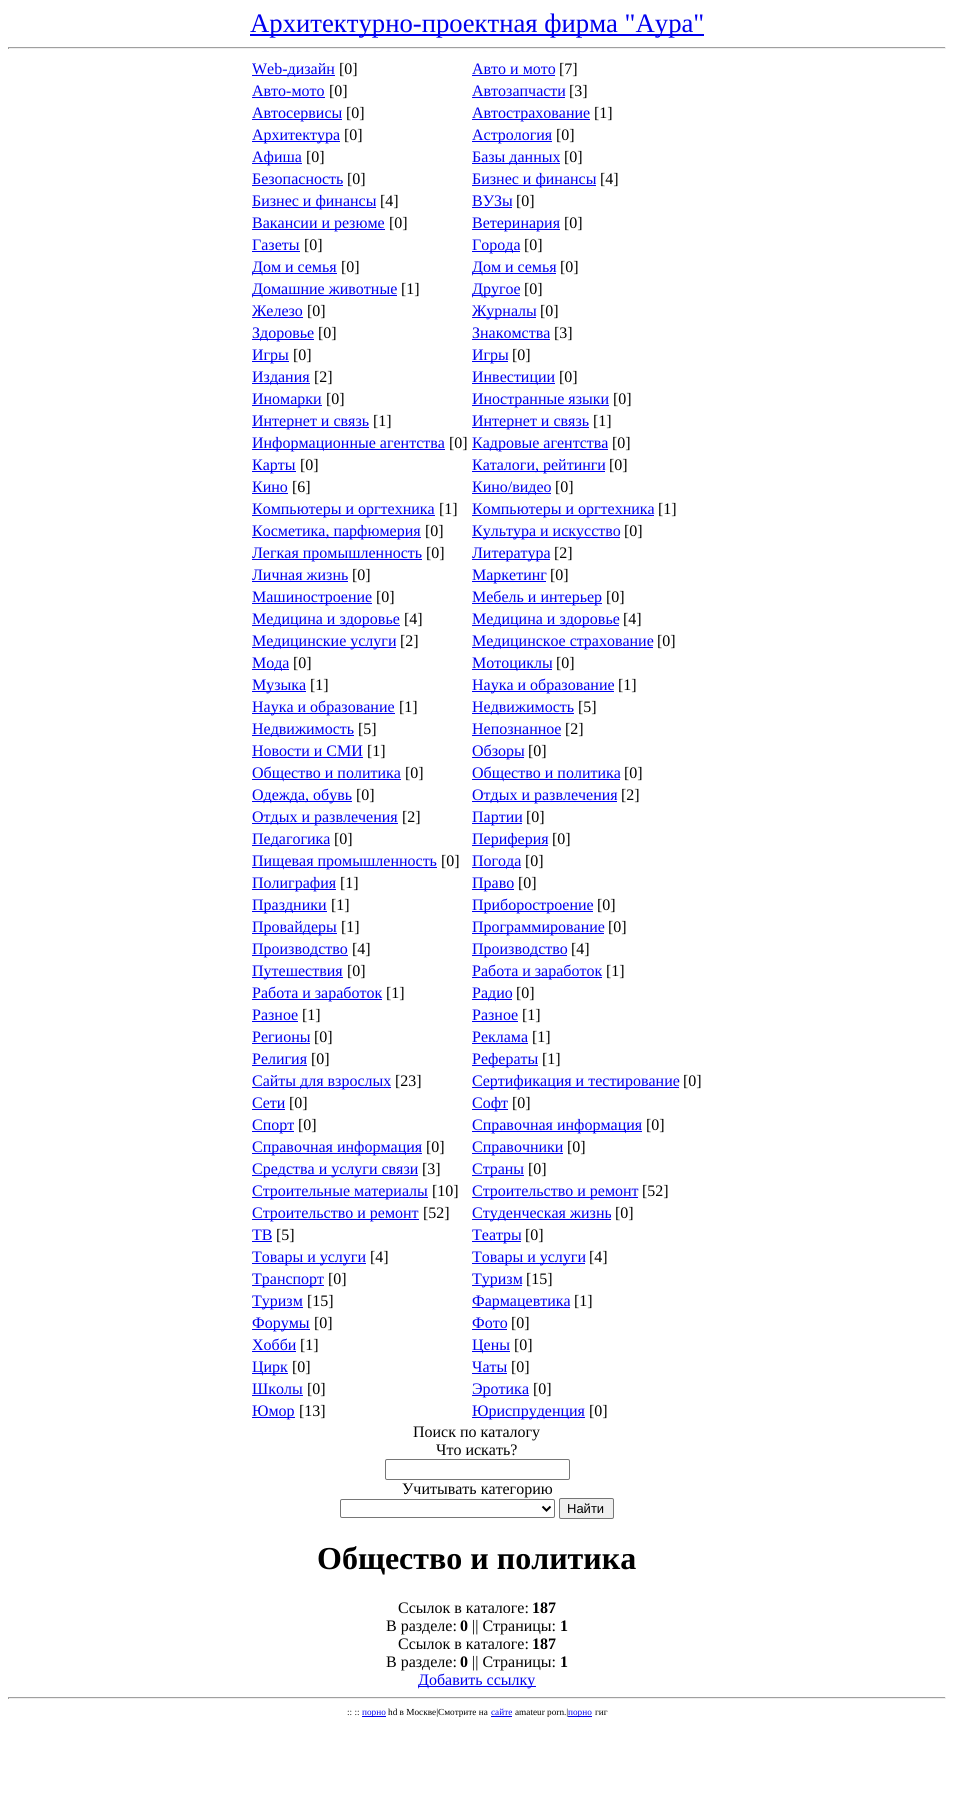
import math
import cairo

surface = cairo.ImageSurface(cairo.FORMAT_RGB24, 954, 1801)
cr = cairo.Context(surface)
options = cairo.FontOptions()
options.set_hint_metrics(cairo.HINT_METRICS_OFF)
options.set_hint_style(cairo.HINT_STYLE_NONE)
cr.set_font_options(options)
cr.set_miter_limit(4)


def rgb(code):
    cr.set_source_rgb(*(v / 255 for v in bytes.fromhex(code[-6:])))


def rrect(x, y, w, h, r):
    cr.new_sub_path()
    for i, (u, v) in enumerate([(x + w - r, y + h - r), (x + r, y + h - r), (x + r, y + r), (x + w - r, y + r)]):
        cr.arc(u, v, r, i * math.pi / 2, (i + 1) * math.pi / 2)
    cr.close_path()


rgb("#ffffff")
cr.paint()
for x, y, w, h, color in [
    (250, 34, 454, 2, "#0000ee"),
    (8, 47, 938, 1, "#9f9f9f"),
    (945, 47, 1, 2, "#eeeeee"),
    (8, 48, 938, 1, "#eeeeee"),
    (8, 47, 1, 2, "#9f9f9f"),
    (252, 75, 83, 1, "#0000ee"),
    (472, 75, 83, 1, "#0000ee"),
    (252, 97, 73, 1, "#0000ee"),
    (472, 97, 93, 1, "#0000ee"),
    (252, 119, 90, 1, "#0000ee"),
    (472, 119, 118, 1, "#0000ee"),
    (252, 141, 88, 1, "#0000ee"),
    (472, 141, 80, 1, "#0000ee"),
    (252, 163, 50, 1, "#0000ee"),
    (472, 163, 88, 1, "#0000ee"),
    (252, 185, 91, 1, "#0000ee"),
    (472, 185, 124, 1, "#0000ee"),
    (252, 207, 124, 1, "#0000ee"),
    (472, 207, 40, 1, "#0000ee"),
    (252, 229, 133, 1, "#0000ee"),
    (472, 229, 88, 1, "#0000ee"),
    (252, 251, 48, 1, "#0000ee"),
    (472, 251, 48, 1, "#0000ee"),
    (252, 273, 85, 1, "#0000ee"),
    (472, 273, 84, 1, "#0000ee"),
    (252, 295, 145, 1, "#0000ee"),
    (472, 295, 48, 1, "#0000ee"),
    (252, 317, 51, 1, "#0000ee"),
    (472, 317, 64, 1, "#0000ee"),
    (252, 339, 62, 1, "#0000ee"),
    (472, 339, 78, 1, "#0000ee"),
    (252, 361, 37, 1, "#0000ee"),
    (472, 361, 36, 1, "#0000ee"),
    (252, 383, 58, 1, "#0000ee"),
    (472, 383, 83, 1, "#0000ee"),
    (252, 405, 70, 1, "#0000ee"),
    (472, 405, 137, 1, "#0000ee"),
    (252, 427, 117, 1, "#0000ee"),
    (472, 427, 117, 1, "#0000ee"),
    (252, 449, 193, 1, "#0000ee"),
    (472, 449, 136, 1, "#0000ee"),
    (252, 471, 44, 1, "#0000ee"),
    (472, 471, 133, 1, "#0000ee"),
    (252, 493, 36, 1, "#0000ee"),
    (472, 493, 79, 1, "#0000ee"),
    (252, 515, 183, 1, "#0000ee"),
    (472, 515, 182, 1, "#0000ee"),
    (252, 537, 169, 1, "#0000ee"),
    (472, 537, 148, 1, "#0000ee"),
    (252, 559, 170, 1, "#0000ee"),
    (472, 559, 78, 1, "#0000ee"),
    (252, 581, 96, 1, "#0000ee"),
    (472, 581, 74, 1, "#0000ee"),
    (252, 603, 120, 1, "#0000ee"),
    (472, 603, 130, 1, "#0000ee"),
    (252, 625, 148, 1, "#0000ee"),
    (472, 625, 147, 1, "#0000ee"),
    (252, 647, 144, 1, "#0000ee"),
    (472, 647, 181, 1, "#0000ee"),
    (252, 669, 37, 1, "#0000ee"),
    (472, 669, 80, 1, "#0000ee"),
    (252, 691, 54, 1, "#0000ee"),
    (472, 691, 142, 1, "#0000ee"),
    (252, 713, 143, 1, "#0000ee"),
    (472, 713, 102, 1, "#0000ee"),
    (252, 735, 102, 1, "#0000ee"),
    (472, 735, 89, 1, "#0000ee"),
    (252, 757, 111, 1, "#0000ee"),
    (472, 757, 52, 1, "#0000ee"),
    (252, 779, 149, 1, "#0000ee"),
    (472, 779, 148, 1, "#0000ee"),
    (252, 801, 100, 1, "#0000ee"),
    (472, 801, 145, 1, "#0000ee"),
    (252, 823, 146, 1, "#0000ee"),
    (472, 823, 50, 1, "#0000ee"),
    (252, 845, 78, 1, "#0000ee"),
    (472, 845, 76, 1, "#0000ee"),
    (252, 867, 185, 1, "#0000ee"),
    (472, 867, 49, 1, "#0000ee"),
    (252, 889, 84, 1, "#0000ee"),
    (472, 889, 42, 1, "#0000ee"),
    (252, 911, 75, 1, "#0000ee"),
    (472, 911, 121, 1, "#0000ee"),
    (252, 933, 85, 1, "#0000ee"),
    (472, 933, 132, 1, "#0000ee"),
    (252, 955, 96, 1, "#0000ee"),
    (472, 955, 95, 1, "#0000ee"),
    (252, 977, 91, 1, "#0000ee"),
    (472, 977, 130, 1, "#0000ee"),
    (252, 999, 130, 1, "#0000ee"),
    (472, 999, 40, 1, "#0000ee"),
    (252, 1021, 46, 1, "#0000ee"),
    (472, 1021, 46, 1, "#0000ee"),
    (252, 1043, 58, 1, "#0000ee"),
    (472, 1043, 56, 1, "#0000ee"),
    (252, 1065, 55, 1, "#0000ee"),
    (472, 1065, 66, 1, "#0000ee"),
    (252, 1087, 139, 1, "#0000ee"),
    (472, 1087, 207, 1, "#0000ee"),
    (252, 1109, 33, 1, "#0000ee"),
    (472, 1109, 36, 1, "#0000ee"),
    (252, 1131, 42, 1, "#0000ee"),
    (472, 1131, 170, 1, "#0000ee"),
    (252, 1153, 170, 1, "#0000ee"),
    (472, 1153, 91, 1, "#0000ee"),
    (252, 1175, 166, 1, "#0000ee"),
    (472, 1175, 52, 1, "#0000ee"),
    (252, 1197, 176, 1, "#0000ee"),
    (472, 1197, 166, 1, "#0000ee"),
    (252, 1219, 167, 1, "#0000ee"),
    (472, 1219, 139, 1, "#0000ee"),
    (252, 1241, 20, 1, "#0000ee"),
    (472, 1241, 49, 1, "#0000ee"),
    (252, 1263, 114, 1, "#0000ee"),
    (472, 1263, 113, 1, "#0000ee"),
    (252, 1285, 72, 1, "#0000ee"),
    (472, 1285, 50, 1, "#0000ee"),
    (252, 1307, 51, 1, "#0000ee"),
    (472, 1307, 98, 1, "#0000ee"),
    (252, 1329, 58, 1, "#0000ee"),
    (472, 1329, 35, 1, "#0000ee"),
    (252, 1351, 44, 1, "#0000ee"),
    (472, 1351, 38, 1, "#0000ee"),
    (252, 1373, 36, 1, "#0000ee"),
    (472, 1373, 35, 1, "#0000ee"),
    (252, 1395, 51, 1, "#0000ee"),
    (472, 1395, 57, 1, "#0000ee"),
    (252, 1417, 43, 1, "#0000ee"),
    (472, 1417, 113, 1, "#0000ee"),
]:
    rgb(color)
    cr.rectangle(x, y, w, h)
    cr.fill()
rrect(385.5, 1459.5, 184, 20, 1.5)
rgb("#767676")
cr.set_line_width(1)
cr.stroke()
rrect(340.5, 1499.5, 214, 18, 1.5)
cr.stroke()
cr.new_path()
cr.move_to(542.5, 1506.5)
cr.line_to(546.5, 1510.5)
cr.line_to(550.5, 1506.5)
rgb("#000000")
cr.set_line_width(2)
cr.stroke()
rgb("#efefef")
rrect(559.5, 1498.5, 54, 20, 1.5)
cr.fill_preserve()
rgb("#767676")
cr.set_line_width(1)
cr.stroke()
for x, y, w, h, color in [
    (418, 1686, 118, 1, "#0000ee"),
    (8, 1697, 938, 1, "#9f9f9f"),
    (945, 1697, 1, 2, "#eeeeee"),
    (8, 1698, 938, 1, "#eeeeee"),
    (8, 1697, 1, 2, "#9f9f9f"),
    (362, 1716, 24, 1, "#0000ee"),
    (491, 1716, 21, 1, "#0000ee"),
    (568, 1716, 24, 1, "#0000ee"),
]:
    rgb(color)
    cr.rectangle(x, y, w, h)
    cr.fill()
cr.select_font_face("Liberation Serif")
cr.set_font_size(26.7)
cr.move_to(250, 32)
cr.show_text("Архитектурно-проектная фирма \"Аура\"")
cr.set_font_size(16)
cr.move_to(252, 74)
cr.show_text("Web-дизайн")
rgb("#000000")
cr.move_to(339, 74)
cr.show_text("[0]")
rgb("#0000ee")
cr.move_to(472, 74)
cr.show_text("Авто и мото")
rgb("#000000")
cr.move_to(559, 74)
cr.show_text("[7]")
rgb("#0000ee")
cr.move_to(252, 96)
cr.show_text("Авто-мото")
rgb("#000000")
cr.move_to(329, 96)
cr.show_text("[0]")
rgb("#0000ee")
cr.move_to(472, 96)
cr.show_text("Автозапчасти")
rgb("#000000")
cr.move_to(569, 96)
cr.show_text("[3]")
rgb("#0000ee")
cr.move_to(252, 118)
cr.show_text("Автосервисы")
rgb("#000000")
cr.move_to(346, 118)
cr.show_text("[0]")
rgb("#0000ee")
cr.move_to(472, 118)
cr.show_text("Автострахование")
rgb("#000000")
cr.move_to(594, 118)
cr.show_text("[1]")
rgb("#0000ee")
cr.move_to(252, 140)
cr.show_text("Архитектура")
rgb("#000000")
cr.move_to(344, 140)
cr.show_text("[0]")
rgb("#0000ee")
cr.move_to(472, 140)
cr.show_text("Астрология")
rgb("#000000")
cr.move_to(556, 140)
cr.show_text("[0]")
rgb("#0000ee")
cr.move_to(252, 162)
cr.show_text("Афиша")
rgb("#000000")
cr.move_to(306, 162)
cr.show_text("[0]")
rgb("#0000ee")
cr.move_to(472, 162)
cr.show_text("Базы данных")
rgb("#000000")
cr.move_to(564, 162)
cr.show_text("[0]")
rgb("#0000ee")
cr.move_to(252, 184)
cr.show_text("Безопасность")
rgb("#000000")
cr.move_to(347, 184)
cr.show_text("[0]")
rgb("#0000ee")
cr.move_to(472, 184)
cr.show_text("Бизнес и финансы")
rgb("#000000")
cr.move_to(600, 184)
cr.show_text("[4]")
rgb("#0000ee")
cr.move_to(252, 206)
cr.show_text("Бизнес и финансы")
rgb("#000000")
cr.move_to(380, 206)
cr.show_text("[4]")
rgb("#0000ee")
cr.move_to(472, 206)
cr.show_text("ВУЗы")
rgb("#000000")
cr.move_to(516, 206)
cr.show_text("[0]")
rgb("#0000ee")
cr.move_to(252, 228)
cr.show_text("Вакансии и резюме")
rgb("#000000")
cr.move_to(389, 228)
cr.show_text("[0]")
rgb("#0000ee")
cr.move_to(472, 228)
cr.show_text("Ветеринария")
rgb("#000000")
cr.move_to(564, 228)
cr.show_text("[0]")
rgb("#0000ee")
cr.move_to(252, 250)
cr.show_text("Газеты")
rgb("#000000")
cr.move_to(304, 250)
cr.show_text("[0]")
rgb("#0000ee")
cr.move_to(472, 250)
cr.show_text("Города")
rgb("#000000")
cr.move_to(524, 250)
cr.show_text("[0]")
rgb("#0000ee")
cr.move_to(252, 272)
cr.show_text("Дом и семья")
rgb("#000000")
cr.move_to(341, 272)
cr.show_text("[0]")
rgb("#0000ee")
cr.move_to(472, 272)
cr.show_text("Дом и семья")
rgb("#000000")
cr.move_to(560, 272)
cr.show_text("[0]")
rgb("#0000ee")
cr.move_to(252, 294)
cr.show_text("Домашние животные")
rgb("#000000")
cr.move_to(401, 294)
cr.show_text("[1]")
rgb("#0000ee")
cr.move_to(472, 294)
cr.show_text("Другое")
rgb("#000000")
cr.move_to(524, 294)
cr.show_text("[0]")
rgb("#0000ee")
cr.move_to(252, 316)
cr.show_text("Железо")
rgb("#000000")
cr.move_to(307, 316)
cr.show_text("[0]")
rgb("#0000ee")
cr.move_to(472, 316)
cr.show_text("Журналы")
rgb("#000000")
cr.move_to(540, 316)
cr.show_text("[0]")
rgb("#0000ee")
cr.move_to(252, 338)
cr.show_text("Здоровье")
rgb("#000000")
cr.move_to(318, 338)
cr.show_text("[0]")
rgb("#0000ee")
cr.move_to(472, 338)
cr.show_text("Знакомства")
rgb("#000000")
cr.move_to(554, 338)
cr.show_text("[3]")
rgb("#0000ee")
cr.move_to(252, 360)
cr.show_text("Игры")
rgb("#000000")
cr.move_to(293, 360)
cr.show_text("[0]")
rgb("#0000ee")
cr.move_to(472, 360)
cr.show_text("Игры")
rgb("#000000")
cr.move_to(512, 360)
cr.show_text("[0]")
rgb("#0000ee")
cr.move_to(252, 382)
cr.show_text("Издания")
rgb("#000000")
cr.move_to(314, 382)
cr.show_text("[2]")
rgb("#0000ee")
cr.move_to(472, 382)
cr.show_text("Инвестиции")
rgb("#000000")
cr.move_to(559, 382)
cr.show_text("[0]")
rgb("#0000ee")
cr.move_to(252, 404)
cr.show_text("Иномарки")
rgb("#000000")
cr.move_to(326, 404)
cr.show_text("[0]")
rgb("#0000ee")
cr.move_to(472, 404)
cr.show_text("Иностранные языки")
rgb("#000000")
cr.move_to(613, 404)
cr.show_text("[0]")
rgb("#0000ee")
cr.move_to(252, 426)
cr.show_text("Интернет и связь")
rgb("#000000")
cr.move_to(373, 426)
cr.show_text("[1]")
rgb("#0000ee")
cr.move_to(472, 426)
cr.show_text("Интернет и связь")
rgb("#000000")
cr.move_to(593, 426)
cr.show_text("[1]")
rgb("#0000ee")
cr.move_to(252, 448)
cr.show_text("Информационные агентства")
rgb("#000000")
cr.move_to(449, 448)
cr.show_text("[0]")
rgb("#0000ee")
cr.move_to(472, 448)
cr.show_text("Кадровые агентства")
rgb("#000000")
cr.move_to(612, 448)
cr.show_text("[0]")
rgb("#0000ee")
cr.move_to(252, 470)
cr.show_text("Карты")
rgb("#000000")
cr.move_to(300, 470)
cr.show_text("[0]")
rgb("#0000ee")
cr.move_to(472, 470)
cr.show_text("Каталоги, рейтинги")
rgb("#000000")
cr.move_to(609, 470)
cr.show_text("[0]")
rgb("#0000ee")
cr.move_to(252, 492)
cr.show_text("Кино")
rgb("#000000")
cr.move_to(292, 492)
cr.show_text("[6]")
rgb("#0000ee")
cr.move_to(472, 492)
cr.show_text("Кино/видео")
rgb("#000000")
cr.move_to(555, 492)
cr.show_text("[0]")
rgb("#0000ee")
cr.move_to(252, 514)
cr.show_text("Компьютеры и оргтехника")
rgb("#000000")
cr.move_to(439, 514)
cr.show_text("[1]")
rgb("#0000ee")
cr.move_to(472, 514)
cr.show_text("Компьютеры и оргтехника")
rgb("#000000")
cr.move_to(658, 514)
cr.show_text("[1]")
rgb("#0000ee")
cr.move_to(252, 536)
cr.show_text("Косметика, парфюмерия")
rgb("#000000")
cr.move_to(425, 536)
cr.show_text("[0]")
rgb("#0000ee")
cr.move_to(472, 536)
cr.show_text("Культура и искусство")
rgb("#000000")
cr.move_to(624, 536)
cr.show_text("[0]")
rgb("#0000ee")
cr.move_to(252, 558)
cr.show_text("Легкая промышленность")
rgb("#000000")
cr.move_to(426, 558)
cr.show_text("[0]")
rgb("#0000ee")
cr.move_to(472, 558)
cr.show_text("Литература")
rgb("#000000")
cr.move_to(554, 558)
cr.show_text("[2]")
rgb("#0000ee")
cr.move_to(252, 580)
cr.show_text("Личная жизнь")
rgb("#000000")
cr.move_to(352, 580)
cr.show_text("[0]")
rgb("#0000ee")
cr.move_to(472, 580)
cr.show_text("Маркетинг")
rgb("#000000")
cr.move_to(550, 580)
cr.show_text("[0]")
rgb("#0000ee")
cr.move_to(252, 602)
cr.show_text("Машиностроение")
rgb("#000000")
cr.move_to(376, 602)
cr.show_text("[0]")
rgb("#0000ee")
cr.move_to(472, 602)
cr.show_text("Мебель и интерьер")
rgb("#000000")
cr.move_to(606, 602)
cr.show_text("[0]")
rgb("#0000ee")
cr.move_to(252, 624)
cr.show_text("Медицина и здоровье")
rgb("#000000")
cr.move_to(404, 624)
cr.show_text("[4]")
rgb("#0000ee")
cr.move_to(472, 624)
cr.show_text("Медицина и здоровье")
rgb("#000000")
cr.move_to(623, 624)
cr.show_text("[4]")
rgb("#0000ee")
cr.move_to(252, 646)
cr.show_text("Медицинские услуги")
rgb("#000000")
cr.move_to(400, 646)
cr.show_text("[2]")
rgb("#0000ee")
cr.move_to(472, 646)
cr.show_text("Медицинское страхование")
rgb("#000000")
cr.move_to(657, 646)
cr.show_text("[0]")
rgb("#0000ee")
cr.move_to(252, 668)
cr.show_text("Мода")
rgb("#000000")
cr.move_to(293, 668)
cr.show_text("[0]")
rgb("#0000ee")
cr.move_to(472, 668)
cr.show_text("Мотоциклы")
rgb("#000000")
cr.move_to(556, 668)
cr.show_text("[0]")
rgb("#0000ee")
cr.move_to(252, 690)
cr.show_text("Музыка")
rgb("#000000")
cr.move_to(310, 690)
cr.show_text("[1]")
rgb("#0000ee")
cr.move_to(472, 690)
cr.show_text("Наука и образование")
rgb("#000000")
cr.move_to(618, 690)
cr.show_text("[1]")
rgb("#0000ee")
cr.move_to(252, 712)
cr.show_text("Наука и образование")
rgb("#000000")
cr.move_to(399, 712)
cr.show_text("[1]")
rgb("#0000ee")
cr.move_to(472, 712)
cr.show_text("Недвижимость")
rgb("#000000")
cr.move_to(578, 712)
cr.show_text("[5]")
rgb("#0000ee")
cr.move_to(252, 734)
cr.show_text("Недвижимость")
rgb("#000000")
cr.move_to(358, 734)
cr.show_text("[5]")
rgb("#0000ee")
cr.move_to(472, 734)
cr.show_text("Непознанное")
rgb("#000000")
cr.move_to(565, 734)
cr.show_text("[2]")
rgb("#0000ee")
cr.move_to(252, 756)
cr.show_text("Новости и СМИ")
rgb("#000000")
cr.move_to(367, 756)
cr.show_text("[1]")
rgb("#0000ee")
cr.move_to(472, 756)
cr.show_text("Обзоры")
rgb("#000000")
cr.move_to(528, 756)
cr.show_text("[0]")
rgb("#0000ee")
cr.move_to(252, 778)
cr.show_text("Общество и политика")
rgb("#000000")
cr.move_to(405, 778)
cr.show_text("[0]")
rgb("#0000ee")
cr.move_to(472, 778)
cr.show_text("Общество и политика")
rgb("#000000")
cr.move_to(624, 778)
cr.show_text("[0]")
rgb("#0000ee")
cr.move_to(252, 800)
cr.show_text("Одежда, обувь")
rgb("#000000")
cr.move_to(356, 800)
cr.show_text("[0]")
rgb("#0000ee")
cr.move_to(472, 800)
cr.show_text("Отдых и развлечения")
rgb("#000000")
cr.move_to(621, 800)
cr.show_text("[2]")
rgb("#0000ee")
cr.move_to(252, 822)
cr.show_text("Отдых и развлечения")
rgb("#000000")
cr.move_to(402, 822)
cr.show_text("[2]")
rgb("#0000ee")
cr.move_to(472, 822)
cr.show_text("Партии")
rgb("#000000")
cr.move_to(526, 822)
cr.show_text("[0]")
rgb("#0000ee")
cr.move_to(252, 844)
cr.show_text("Педагогика")
rgb("#000000")
cr.move_to(334, 844)
cr.show_text("[0]")
rgb("#0000ee")
cr.move_to(472, 844)
cr.show_text("Периферия")
rgb("#000000")
cr.move_to(552, 844)
cr.show_text("[0]")
rgb("#0000ee")
cr.move_to(252, 866)
cr.show_text("Пищевая промышленность")
rgb("#000000")
cr.move_to(441, 866)
cr.show_text("[0]")
rgb("#0000ee")
cr.move_to(472, 866)
cr.show_text("Погода")
rgb("#000000")
cr.move_to(525, 866)
cr.show_text("[0]")
rgb("#0000ee")
cr.move_to(252, 888)
cr.show_text("Полиграфия")
rgb("#000000")
cr.move_to(340, 888)
cr.show_text("[1]")
rgb("#0000ee")
cr.move_to(472, 888)
cr.show_text("Право")
rgb("#000000")
cr.move_to(518, 888)
cr.show_text("[0]")
rgb("#0000ee")
cr.move_to(252, 910)
cr.show_text("Праздники")
rgb("#000000")
cr.move_to(331, 910)
cr.show_text("[1]")
rgb("#0000ee")
cr.move_to(472, 910)
cr.show_text("Приборостроение")
rgb("#000000")
cr.move_to(597, 910)
cr.show_text("[0]")
rgb("#0000ee")
cr.move_to(252, 932)
cr.show_text("Провайдеры")
rgb("#000000")
cr.move_to(341, 932)
cr.show_text("[1]")
rgb("#0000ee")
cr.move_to(472, 932)
cr.show_text("Программирование")
rgb("#000000")
cr.move_to(608, 932)
cr.show_text("[0]")
rgb("#0000ee")
cr.move_to(252, 954)
cr.show_text("Производство")
rgb("#000000")
cr.move_to(352, 954)
cr.show_text("[4]")
rgb("#0000ee")
cr.move_to(472, 954)
cr.show_text("Производство")
rgb("#000000")
cr.move_to(571, 954)
cr.show_text("[4]")
rgb("#0000ee")
cr.move_to(252, 976)
cr.show_text("Путешествия")
rgb("#000000")
cr.move_to(347, 976)
cr.show_text("[0]")
rgb("#0000ee")
cr.move_to(472, 976)
cr.show_text("Работа и заработок")
rgb("#000000")
cr.move_to(606, 976)
cr.show_text("[1]")
rgb("#0000ee")
cr.move_to(252, 998)
cr.show_text("Работа и заработок")
rgb("#000000")
cr.move_to(386, 998)
cr.show_text("[1]")
rgb("#0000ee")
cr.move_to(472, 998)
cr.show_text("Радио")
rgb("#000000")
cr.move_to(516, 998)
cr.show_text("[0]")
rgb("#0000ee")
cr.move_to(252, 1020)
cr.show_text("Разное")
rgb("#000000")
cr.move_to(302, 1020)
cr.show_text("[1]")
rgb("#0000ee")
cr.move_to(472, 1020)
cr.show_text("Разное")
rgb("#000000")
cr.move_to(522, 1020)
cr.show_text("[1]")
rgb("#0000ee")
cr.move_to(252, 1042)
cr.show_text("Регионы")
rgb("#000000")
cr.move_to(314, 1042)
cr.show_text("[0]")
rgb("#0000ee")
cr.move_to(472, 1042)
cr.show_text("Реклама")
rgb("#000000")
cr.move_to(532, 1042)
cr.show_text("[1]")
rgb("#0000ee")
cr.move_to(252, 1064)
cr.show_text("Религия")
rgb("#000000")
cr.move_to(311, 1064)
cr.show_text("[0]")
rgb("#0000ee")
cr.move_to(472, 1064)
cr.show_text("Рефераты")
rgb("#000000")
cr.move_to(542, 1064)
cr.show_text("[1]")
rgb("#0000ee")
cr.move_to(252, 1086)
cr.show_text("Сайты для взрослых")
rgb("#000000")
cr.move_to(395, 1086)
cr.show_text("[23]")
rgb("#0000ee")
cr.move_to(472, 1086)
cr.show_text("Сертификация и тестирование")
rgb("#000000")
cr.move_to(683, 1086)
cr.show_text("[0]")
rgb("#0000ee")
cr.move_to(252, 1108)
cr.show_text("Сети")
rgb("#000000")
cr.move_to(289, 1108)
cr.show_text("[0]")
rgb("#0000ee")
cr.move_to(472, 1108)
cr.show_text("Софт")
rgb("#000000")
cr.move_to(512, 1108)
cr.show_text("[0]")
rgb("#0000ee")
cr.move_to(252, 1130)
cr.show_text("Спорт")
rgb("#000000")
cr.move_to(298, 1130)
cr.show_text("[0]")
rgb("#0000ee")
cr.move_to(472, 1130)
cr.show_text("Справочная информация")
rgb("#000000")
cr.move_to(646, 1130)
cr.show_text("[0]")
rgb("#0000ee")
cr.move_to(252, 1152)
cr.show_text("Справочная информация")
rgb("#000000")
cr.move_to(426, 1152)
cr.show_text("[0]")
rgb("#0000ee")
cr.move_to(472, 1152)
cr.show_text("Справочники")
rgb("#000000")
cr.move_to(567, 1152)
cr.show_text("[0]")
rgb("#0000ee")
cr.move_to(252, 1174)
cr.show_text("Средства и услуги связи")
rgb("#000000")
cr.move_to(422, 1174)
cr.show_text("[3]")
rgb("#0000ee")
cr.move_to(472, 1174)
cr.show_text("Страны")
rgb("#000000")
cr.move_to(528, 1174)
cr.show_text("[0]")
rgb("#0000ee")
cr.move_to(252, 1196)
cr.show_text("Строительные материалы")
rgb("#000000")
cr.move_to(432, 1196)
cr.show_text("[10]")
rgb("#0000ee")
cr.move_to(472, 1196)
cr.show_text("Строительство и ремонт")
rgb("#000000")
cr.move_to(642, 1196)
cr.show_text("[52]")
rgb("#0000ee")
cr.move_to(252, 1218)
cr.show_text("Строительство и ремонт")
rgb("#000000")
cr.move_to(423, 1218)
cr.show_text("[52]")
rgb("#0000ee")
cr.move_to(472, 1218)
cr.show_text("Студенческая жизнь")
rgb("#000000")
cr.move_to(615, 1218)
cr.show_text("[0]")
rgb("#0000ee")
cr.move_to(252, 1240)
cr.show_text("ТВ")
rgb("#000000")
cr.move_to(276, 1240)
cr.show_text("[5]")
rgb("#0000ee")
cr.move_to(472, 1240)
cr.show_text("Театры")
rgb("#000000")
cr.move_to(525, 1240)
cr.show_text("[0]")
rgb("#0000ee")
cr.move_to(252, 1262)
cr.show_text("Товары и услуги")
rgb("#000000")
cr.move_to(370, 1262)
cr.show_text("[4]")
rgb("#0000ee")
cr.move_to(472, 1262)
cr.show_text("Товары и услуги")
rgb("#000000")
cr.move_to(589, 1262)
cr.show_text("[4]")
rgb("#0000ee")
cr.move_to(252, 1284)
cr.show_text("Транспорт")
rgb("#000000")
cr.move_to(328, 1284)
cr.show_text("[0]")
rgb("#0000ee")
cr.move_to(472, 1284)
cr.show_text("Туризм")
rgb("#000000")
cr.move_to(526, 1284)
cr.show_text("[15]")
rgb("#0000ee")
cr.move_to(252, 1306)
cr.show_text("Туризм")
rgb("#000000")
cr.move_to(307, 1306)
cr.show_text("[15]")
rgb("#0000ee")
cr.move_to(472, 1306)
cr.show_text("Фармацевтика")
rgb("#000000")
cr.move_to(574, 1306)
cr.show_text("[1]")
rgb("#0000ee")
cr.move_to(252, 1328)
cr.show_text("Форумы")
rgb("#000000")
cr.move_to(314, 1328)
cr.show_text("[0]")
rgb("#0000ee")
cr.move_to(472, 1328)
cr.show_text("Фото")
rgb("#000000")
cr.move_to(511, 1328)
cr.show_text("[0]")
rgb("#0000ee")
cr.move_to(252, 1350)
cr.show_text("Хобби")
rgb("#000000")
cr.move_to(300, 1350)
cr.show_text("[1]")
rgb("#0000ee")
cr.move_to(472, 1350)
cr.show_text("Цены")
rgb("#000000")
cr.move_to(514, 1350)
cr.show_text("[0]")
rgb("#0000ee")
cr.move_to(252, 1372)
cr.show_text("Цирк")
rgb("#000000")
cr.move_to(292, 1372)
cr.show_text("[0]")
rgb("#0000ee")
cr.move_to(472, 1372)
cr.show_text("Чаты")
rgb("#000000")
cr.move_to(511, 1372)
cr.show_text("[0]")
rgb("#0000ee")
cr.move_to(252, 1394)
cr.show_text("Школы")
rgb("#000000")
cr.move_to(307, 1394)
cr.show_text("[0]")
rgb("#0000ee")
cr.move_to(472, 1394)
cr.show_text("Эротика")
rgb("#000000")
cr.move_to(533, 1394)
cr.show_text("[0]")
rgb("#0000ee")
cr.move_to(252, 1416)
cr.show_text("Юмор")
rgb("#000000")
cr.move_to(299, 1416)
cr.show_text("[13]")
rgb("#0000ee")
cr.move_to(472, 1416)
cr.show_text("Юриспруденция")
rgb("#000000")
for x, y, s in [
    (589, 1416, "[0]"),
    (413, 1437, "Поиск по каталогу"),
    (436, 1455, "Что искать?"),
    (402, 1494, "Учитывать категорию"),
]:
    cr.move_to(x, y)
    cr.show_text(s)
cr.select_font_face("Liberation Sans")
cr.set_font_size(13)
cr.move_to(567, 1513)
cr.show_text("Найти")
cr.select_font_face("Liberation Serif", cairo.FONT_SLANT_NORMAL, cairo.FONT_WEIGHT_BOLD)
cr.set_font_size(32)
cr.move_to(317, 1569)
cr.show_text("Общество и политика")
cr.select_font_face("Liberation Serif")
cr.set_font_size(16)
cr.move_to(398, 1613)
cr.show_text("Ссылок в каталоге:")
cr.select_font_face("Liberation Serif", cairo.FONT_SLANT_NORMAL, cairo.FONT_WEIGHT_BOLD)
cr.move_to(532, 1613)
cr.show_text("187")
cr.select_font_face("Liberation Serif")
cr.move_to(386, 1631)
cr.show_text("В разделе:")
cr.select_font_face("Liberation Serif", cairo.FONT_SLANT_NORMAL, cairo.FONT_WEIGHT_BOLD)
cr.move_to(460, 1631)
cr.show_text("0")
cr.select_font_face("Liberation Serif")
cr.move_to(472, 1631)
cr.show_text("|| Страницы:")
cr.select_font_face("Liberation Serif", cairo.FONT_SLANT_NORMAL, cairo.FONT_WEIGHT_BOLD)
cr.move_to(560, 1631)
cr.show_text("1")
cr.select_font_face("Liberation Serif")
cr.move_to(398, 1649)
cr.show_text("Ссылок в каталоге:")
cr.select_font_face("Liberation Serif", cairo.FONT_SLANT_NORMAL, cairo.FONT_WEIGHT_BOLD)
cr.move_to(532, 1649)
cr.show_text("187")
cr.select_font_face("Liberation Serif")
cr.move_to(386, 1667)
cr.show_text("В разделе:")
cr.select_font_face("Liberation Serif", cairo.FONT_SLANT_NORMAL, cairo.FONT_WEIGHT_BOLD)
cr.move_to(460, 1667)
cr.show_text("0")
cr.select_font_face("Liberation Serif")
cr.move_to(472, 1667)
cr.show_text("|| Страницы:")
cr.select_font_face("Liberation Serif", cairo.FONT_SLANT_NORMAL, cairo.FONT_WEIGHT_BOLD)
cr.move_to(560, 1667)
cr.show_text("1")
cr.select_font_face("Liberation Serif")
rgb("#0000ee")
cr.move_to(418, 1685)
cr.show_text("Добавить ссылку")
cr.set_font_size(9.25)
rgb("#000000")
cr.move_to(347, 1715)
cr.show_text(":: ::")
rgb("#0000ee")
cr.move_to(362, 1715)
cr.show_text("порно")
rgb("#000000")
cr.move_to(388, 1715)
cr.show_text("hd в Москве|Смотрите на")
rgb("#0000ee")
cr.move_to(491, 1715)
cr.show_text("сайте")
rgb("#000000")
cr.move_to(515, 1715)
cr.show_text("amateur porn.|")
rgb("#0000ee")
cr.move_to(568, 1715)
cr.show_text("порно")
rgb("#000000")
cr.move_to(595, 1715)
cr.show_text("гиг")
surface.write_to_png("page.png")
